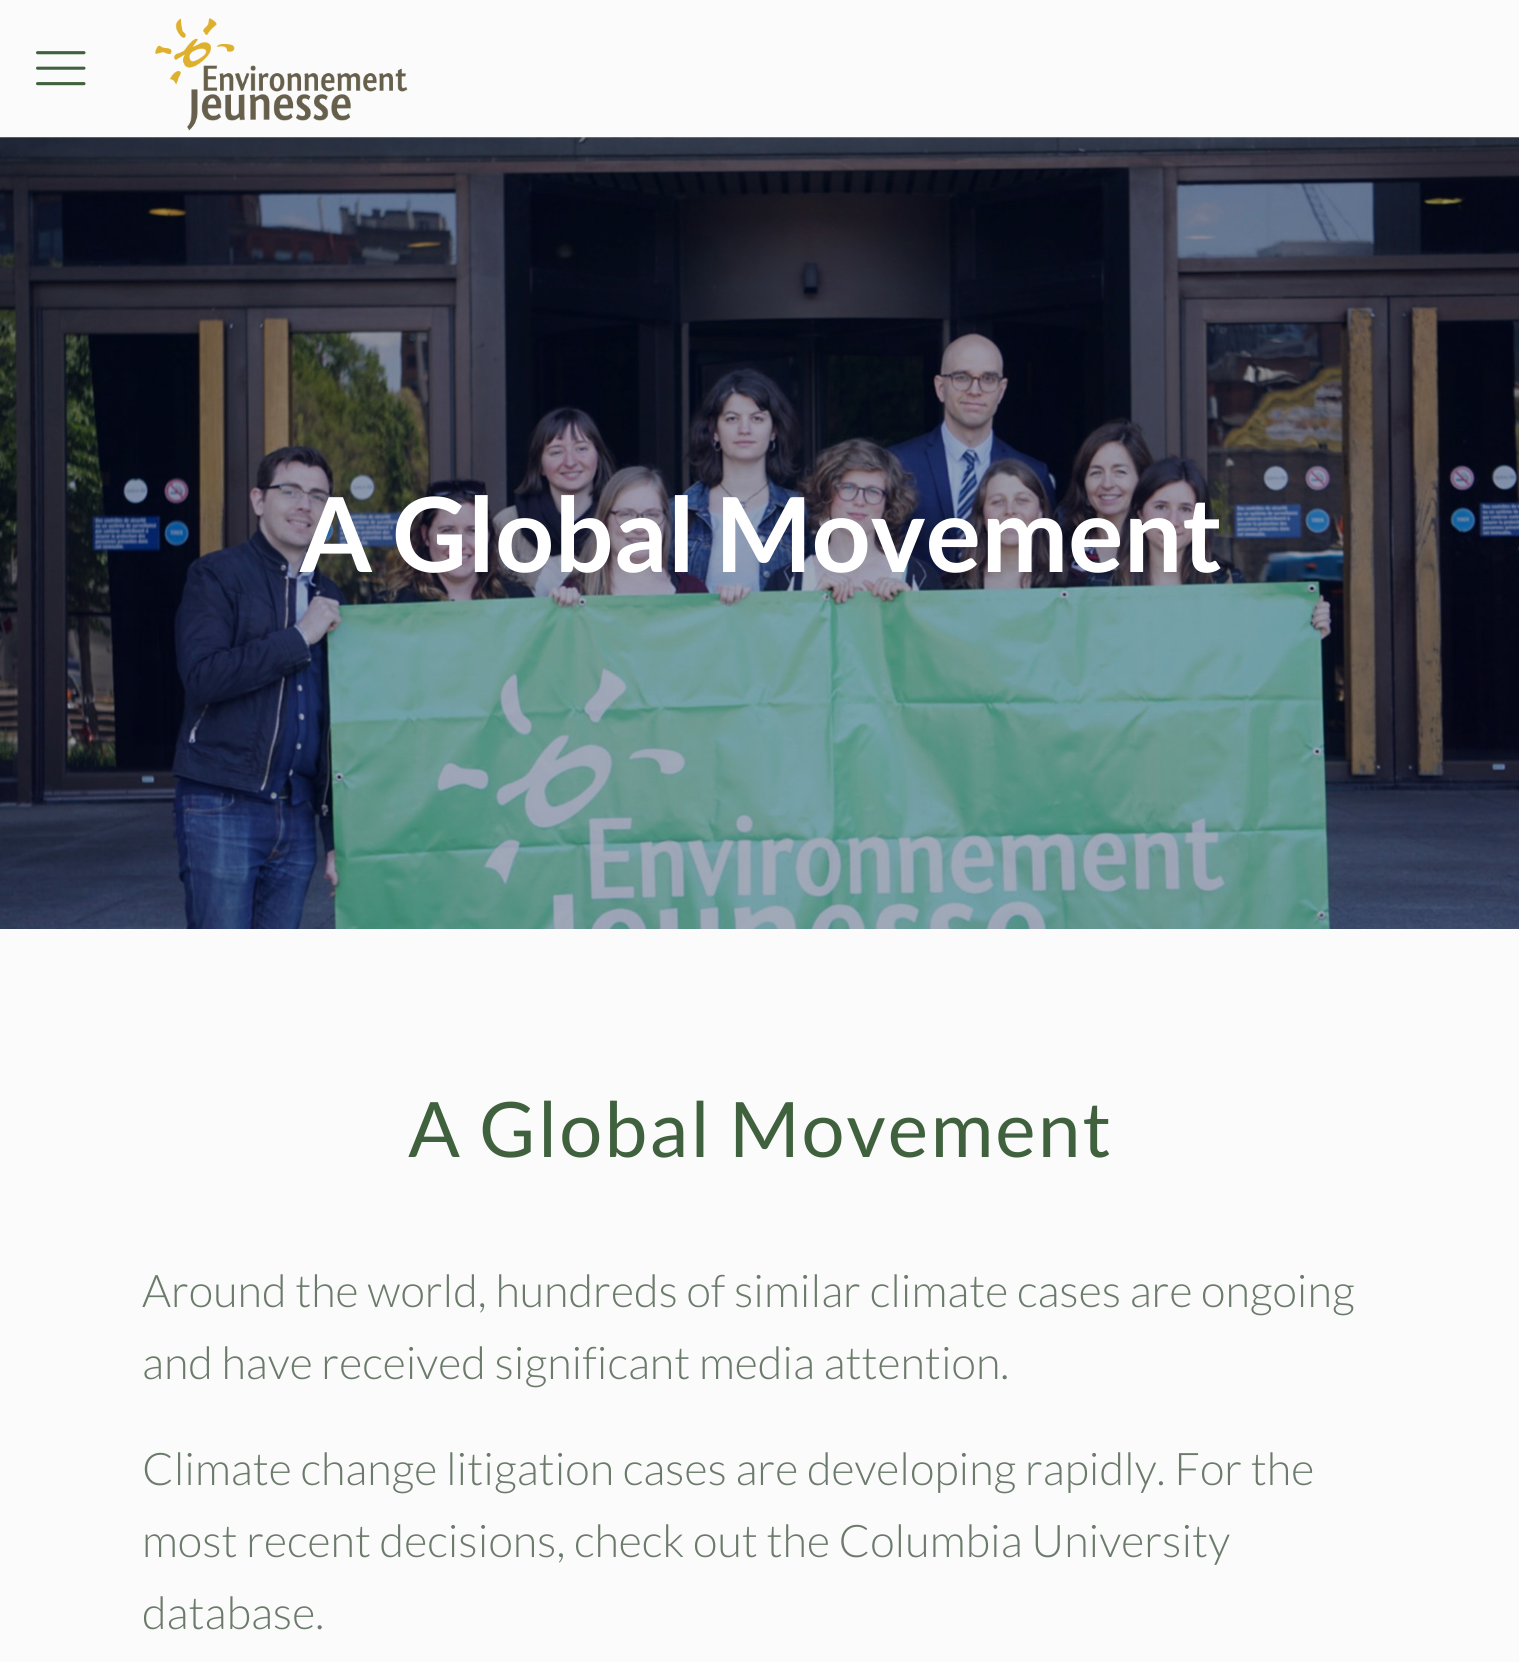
import math
import cairo

surface = cairo.ImageSurface(cairo.FORMAT_RGB24, 1519, 1662)
cr = cairo.Context(surface)
options = cairo.FontOptions()
options.set_hint_metrics(cairo.HINT_METRICS_OFF)
options.set_hint_style(cairo.HINT_STYLE_NONE)
cr.set_font_options(options)
cr.set_miter_limit(4)


def rgb(code):
    cr.set_source_rgb(*(v / 255 for v in bytes.fromhex(code[-6:])))


def tracked(x, y, s, letter, word):
    cr.move_to(x, y)
    for ch in s:
        cr.show_text(ch)
        cr.rel_move_to(letter + word * (ch == ' '), 0)


def image(path, x, y, w, h):
    cr.save()
    cr.set_source_surface(cairo.ImageSurface.create_from_png(path), x, y)
    cr.rectangle(x, y, w, h)
    cr.fill()
    cr.restore()


rgb("#ffffff")
cr.paint()
rgb("#fafbfa")
cr.rectangle(0, 0, 1519, 137)
cr.fill()
image("img/1.png", 36, 51, 50, 35)
image("img/2.png", 155, 18, 253, 113)
image("img/3.png", 0, 137, 1519, 792)
cr.rectangle(0, 929, 1519, 733)
cr.fill()
cr.select_font_face("Lato", cairo.FONT_SLANT_NORMAL, cairo.FONT_WEIGHT_BOLD)
cr.set_font_size(103.5)
rgb("#ffffff")
cr.move_to(299, 572)
cr.show_text("A Global Movement")
cr.select_font_face("Lato")
cr.set_font_size(76.5)
rgb("#3f613d")
tracked(408, 1157, "A Global Movement", 2.25, 0)
cr.select_font_face("Lato Light")
cr.set_font_size(45)
rgb("#6b7a6b")
for x, y, s in [
    (142, 1307, "Around the world, hundreds of similar climate cases are ongoing"),
    (142, 1379, "and have received significant media attention."),
    (142, 1485, "Climate change litigation cases are developing rapidly. For the"),
    (142, 1557, "most recent decisions, check out the Columbia University"),
    (142, 1629, "database."),
]:
    cr.move_to(x, y)
    cr.show_text(s)
surface.write_to_png("page.png")
